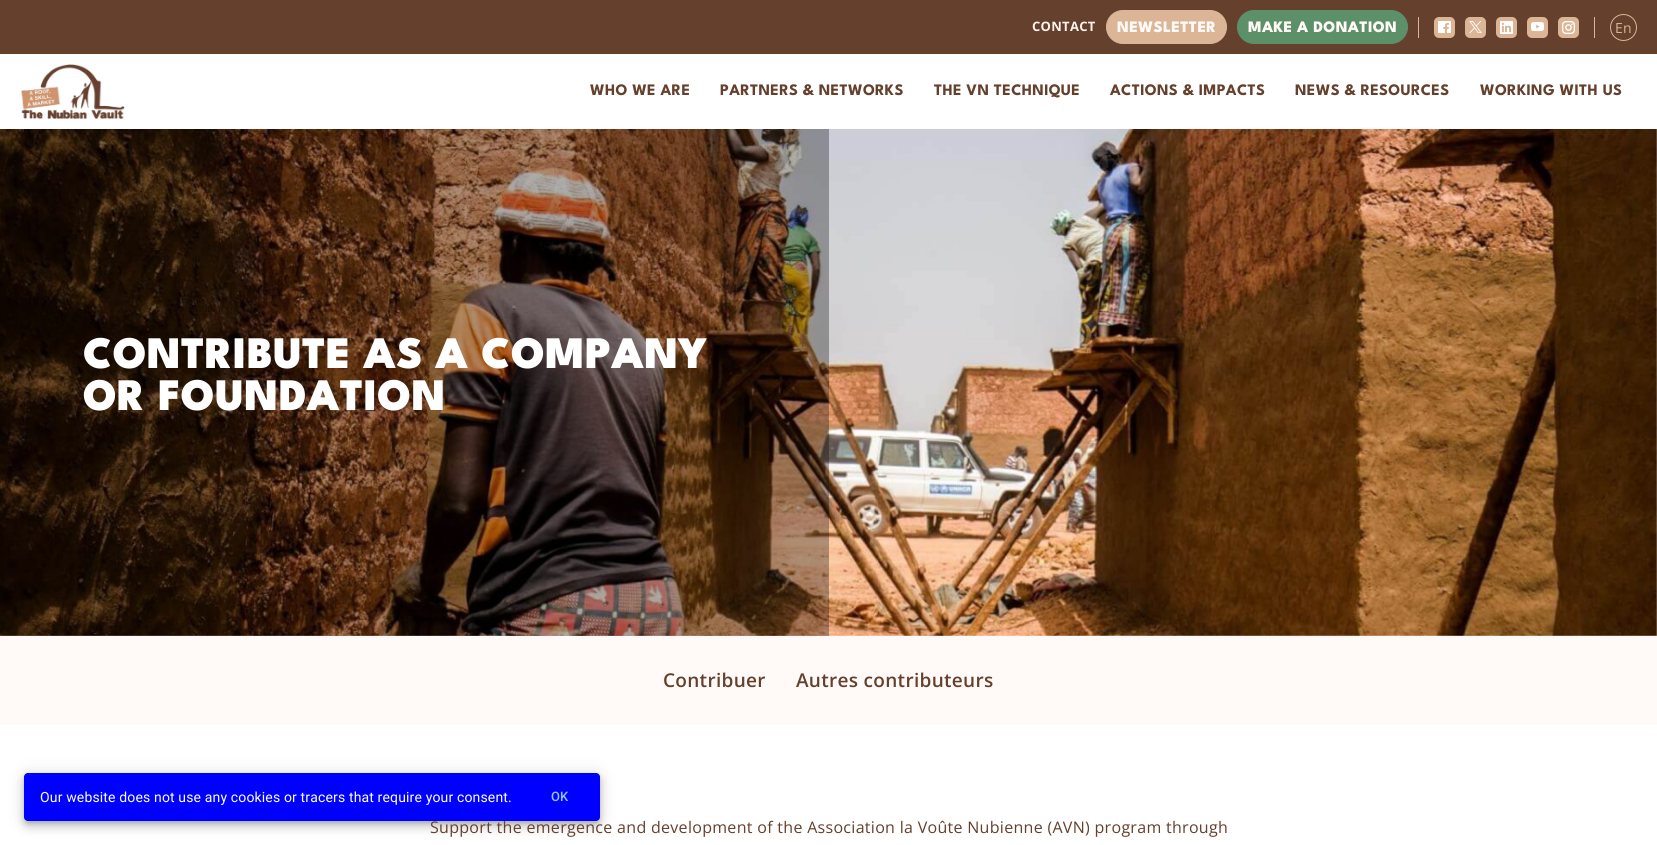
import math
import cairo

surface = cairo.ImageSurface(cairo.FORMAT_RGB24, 1657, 845)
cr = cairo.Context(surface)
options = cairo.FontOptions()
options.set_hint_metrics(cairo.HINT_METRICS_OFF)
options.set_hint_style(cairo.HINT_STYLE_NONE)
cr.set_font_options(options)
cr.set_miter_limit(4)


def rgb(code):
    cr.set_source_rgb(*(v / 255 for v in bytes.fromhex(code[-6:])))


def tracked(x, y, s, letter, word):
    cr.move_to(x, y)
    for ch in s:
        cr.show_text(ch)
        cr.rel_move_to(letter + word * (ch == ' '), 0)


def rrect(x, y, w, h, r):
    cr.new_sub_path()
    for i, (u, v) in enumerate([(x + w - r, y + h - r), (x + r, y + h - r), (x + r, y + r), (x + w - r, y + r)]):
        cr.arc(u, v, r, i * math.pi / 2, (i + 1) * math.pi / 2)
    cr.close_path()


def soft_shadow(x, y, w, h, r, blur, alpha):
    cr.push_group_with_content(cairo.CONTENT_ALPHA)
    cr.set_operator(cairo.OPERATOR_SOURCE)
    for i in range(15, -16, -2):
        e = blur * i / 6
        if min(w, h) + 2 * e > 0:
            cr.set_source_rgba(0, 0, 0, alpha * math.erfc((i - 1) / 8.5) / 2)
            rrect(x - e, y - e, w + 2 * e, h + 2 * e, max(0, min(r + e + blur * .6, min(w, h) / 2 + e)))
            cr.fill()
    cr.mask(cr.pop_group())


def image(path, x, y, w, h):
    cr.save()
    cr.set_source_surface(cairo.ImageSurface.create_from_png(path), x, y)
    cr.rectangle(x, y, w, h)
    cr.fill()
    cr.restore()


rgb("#ffffff")
cr.paint()
rgb("#64402d")
cr.rectangle(0, 0, 1657, 54)
cr.fill()
rgb("#dbb595")
rrect(1106.5, 10.5, 120, 33, 16.5)
cr.fill_preserve()
cr.set_line_width(1)
cr.stroke()
rgb("#5c9068")
rrect(1237.5, 10.5, 170, 33, 16.5)
cr.fill_preserve()
cr.stroke()
rgb("#dbb595")
cr.rectangle(1594, 17, 1, 21)
cr.fill()
cr.rectangle(1418, 17, 1, 21)
cr.fill()
rrect(1434, 17, 21, 21, 5)
cr.fill()
image("img/1.png", 1438, 21, 13, 12)
rrect(1465, 17, 21, 21, 5)
cr.fill()
image("img/2.png", 1469, 21, 13, 12)
rrect(1496, 17, 21, 21, 5)
cr.fill()
image("img/3.png", 1500, 21, 13, 13)
rrect(1527, 17, 21, 21, 5)
cr.fill()
image("img/4.png", 1531, 22, 13, 10)
rrect(1558, 17, 21, 21, 5)
cr.fill()
image("img/5.png", 1562, 21, 13, 13)
cr.arc(1623.5, 27.5, 13, 0, 2 * math.pi)
cr.stroke()
image("img/6.png", 21, 64, 104, 55)
image("img/7.png", 0, 129, 1657, 507)
cr.set_source_rgba(0, 0, 0, 0.31)
cr.rectangle(0, 129, 829, 507)
cr.fill()
rgb("#fffaf7")
cr.rectangle(0, 636, 1657, 89)
cr.fill()
rgb("#000000")
soft_shadow(24, 774, 576, 48, 4, 9, 0.12)
soft_shadow(24, 779, 576, 48, 4, 5, 0.14)
soft_shadow(25, 777, 574, 46, 3, 2.5, 0.2)
cr.select_font_face("Open Sans", cairo.FONT_SLANT_NORMAL, cairo.FONT_WEIGHT_BOLD)
cr.set_font_size(13)
rgb("#fef2ed")
tracked(1032, 31, "CONTACT", 0.3, 0)
cr.select_font_face("League Spartan ExtraBold")
cr.set_font_size(16)
rgb("#fffaf7")
tracked(1117, 32, "NEWSLETTER", 0.3, 0)
tracked(1248, 32, "MAKE A DONATION", 0.3, 0)
cr.select_font_face("Open Sans")
cr.set_font_size(14)
rgb("#dbb595")
tracked(1615, 33, "En", 0.3, 0)
cr.select_font_face("League Spartan", cairo.FONT_SLANT_NORMAL, cairo.FONT_WEIGHT_BOLD)
cr.set_font_size(16)
rgb("#64402d")
for x, y, s in [
    (590, 95, "WHO WE ARE"),
    (720, 95, "PARTNERS & NETWORKS"),
    (934, 95, "THE VN TECHNIQUE"),
    (1110, 95, "ACTIONS & IMPACTS"),
    (1295, 95, "NEWS & RESOURCES"),
    (1480, 95, "WORKING WITH US"),
]:
    tracked(x, y, s, 0.3, 0)
cr.select_font_face("League Spartan Black")
cr.set_font_size(45)
rgb("#ffffff")
tracked(83, 368, "CONTRIBUTE AS A COMPANY", 0.3, 0)
tracked(83, 410, "OR FOUNDATION", 0.3, 0)
cr.select_font_face("Open Sans SemiBold")
cr.set_font_size(19)
rgb("#64402d")
tracked(663, 687, "Contribuer", 0.3, 0)
tracked(796, 687, "Autres contributeurs", 0.3, 0)
cr.select_font_face("Open Sans")
cr.set_font_size(16)
tracked(430, 833, "Support the emergence and development of the Association la Voûte Nubienne (AVN) program through", 0.3, 0)
rgb("#0000ff")
rrect(24, 773, 576, 48, 4)
cr.fill()
cr.select_font_face("Roboto")
cr.set_font_size(14)
rgb("#ffffff")
tracked(40, 802, "Our website does not use any cookies or tracers that require your consent.", 0.15, 0)
cr.select_font_face("Roboto Medium")
cr.set_font_size(13)
rgb("#90caf9")
cr.move_to(551, 801)
cr.show_text("OK")
surface.write_to_png("page.png")
